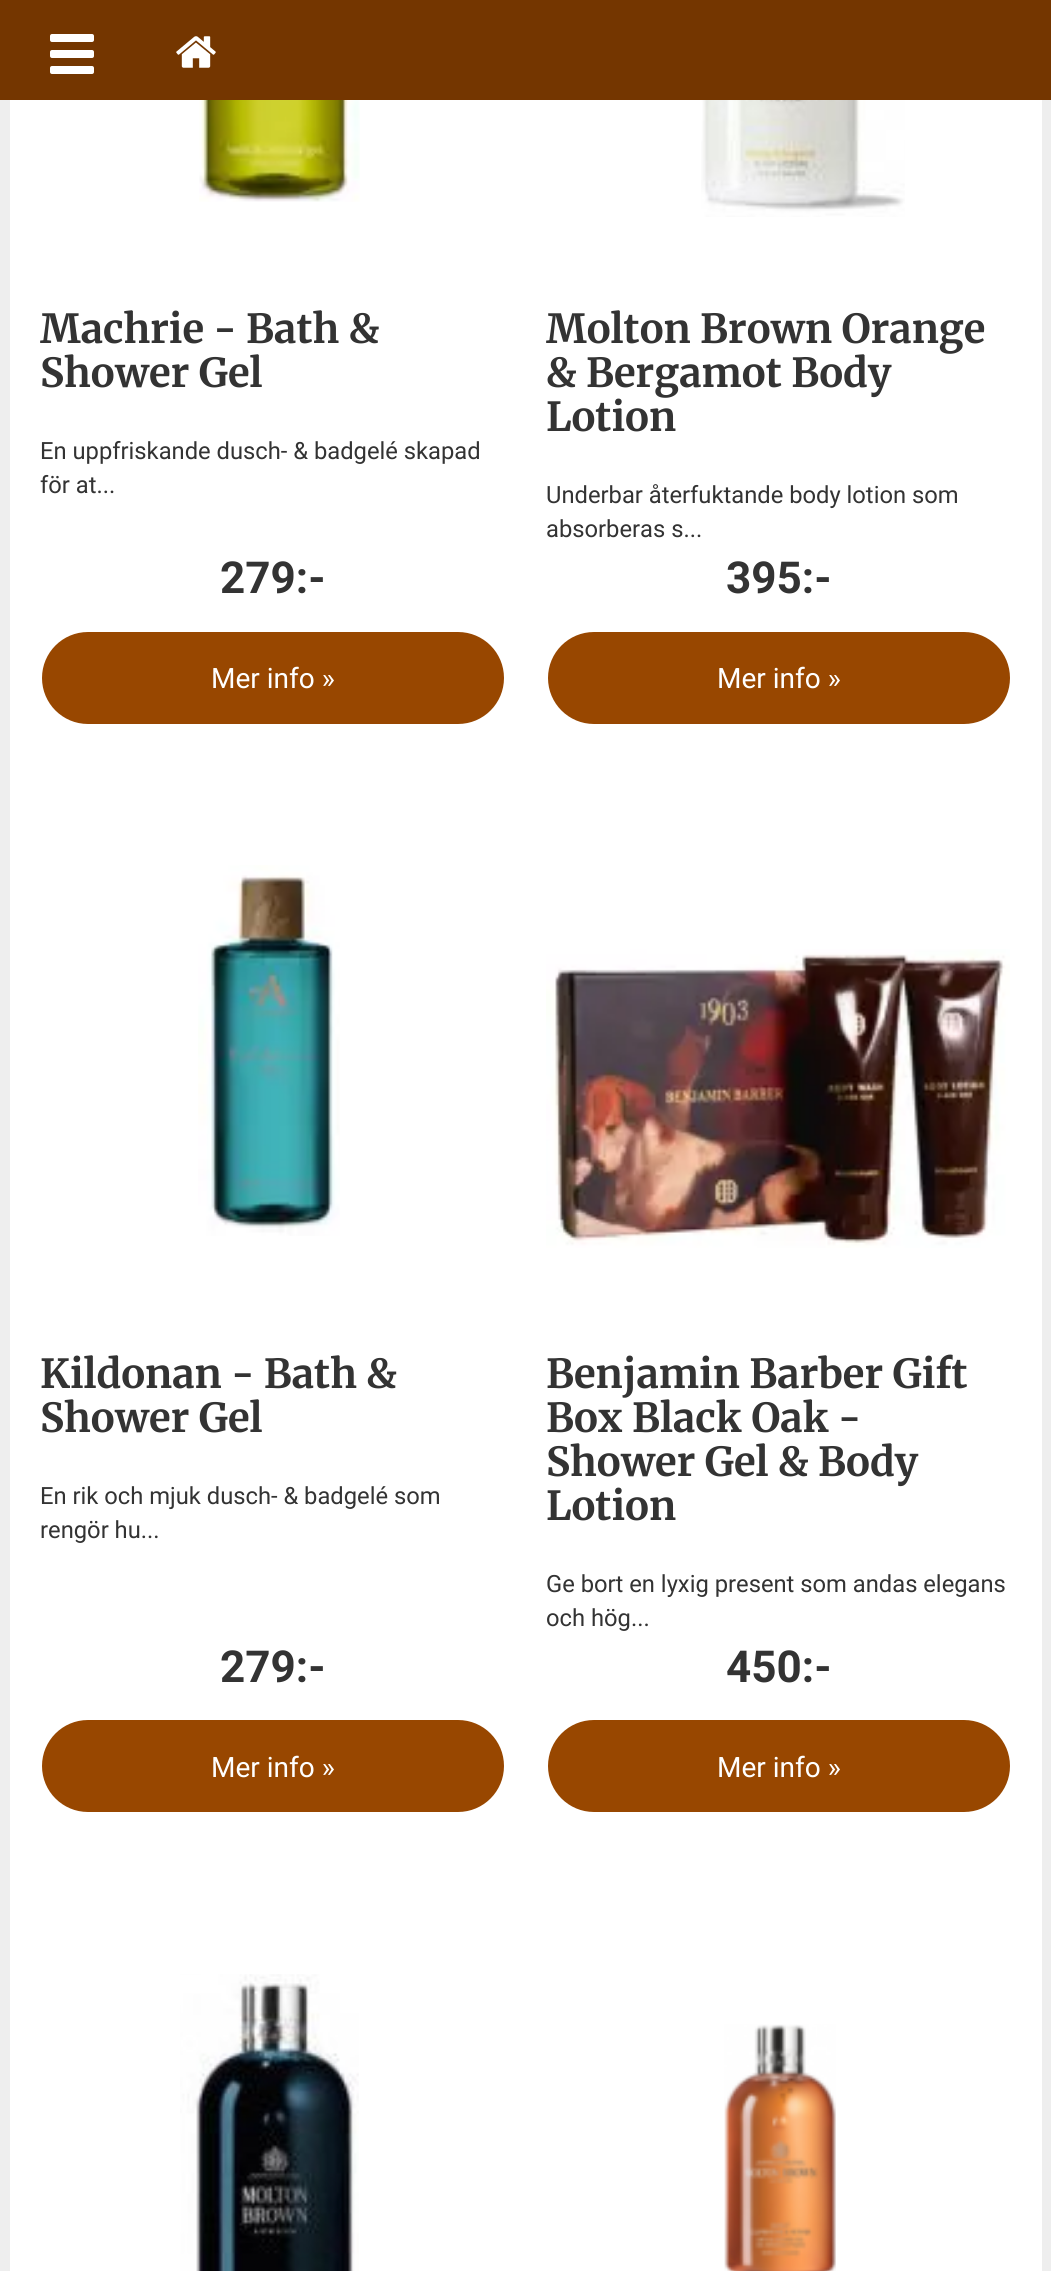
import math
import cairo

surface = cairo.ImageSurface(cairo.FORMAT_RGB24, 1051, 2271)
cr = cairo.Context(surface)
options = cairo.FontOptions()
options.set_hint_metrics(cairo.HINT_METRICS_OFF)
options.set_hint_style(cairo.HINT_STYLE_NONE)
cr.set_font_options(options)
cr.set_miter_limit(4)


def rgb(code):
    cr.set_source_rgb(*(v / 255 for v in bytes.fromhex(code[-6:])))


def rrect(x, y, w, h, r):
    cr.new_sub_path()
    for i, (u, v) in enumerate([(x + w - r, y + h - r), (x + r, y + h - r), (x + r, y + r), (x + w - r, y + r)]):
        cr.arc(u, v, r, i * math.pi / 2, (i + 1) * math.pi / 2)
    cr.close_path()


def image(path, x, y, w, h):
    cr.save()
    cr.set_source_surface(cairo.ImageSurface.create_from_png(path), x, y)
    cr.rectangle(x, y, w, h)
    cr.fill()
    cr.restore()


rgb("#eeeeee")
cr.paint()
rgb("#743600")
cr.rectangle(0, 0, 1051, 100)
cr.fill()
rgb("#ffffff")
rrect(50, 34, 44, 8, 2)
cr.fill()
rrect(50, 50, 44, 8, 2)
cr.fill()
rrect(50, 66, 44, 8, 2)
cr.fill()
image("img/1.png", 176, 36, 40, 32)
cr.rectangle(10, 100, 1032, 2171)
cr.fill()
image("img/2.png", 199, 100, 161, 102)
rgb("#984700")
rrect(41, 631, 464, 94, 47)
cr.fill_preserve()
rgb("#ffffff")
cr.stroke()
image("img/3.png", 701, 100, 204, 117)
rgb("#984700")
rrect(547, 631, 464, 94, 47)
cr.fill_preserve()
rgb("#ffffff")
cr.stroke()
image("img/4.png", 198, 865, 142, 371)
rgb("#984700")
rrect(41, 1719, 464, 94, 47)
cr.fill_preserve()
rgb("#ffffff")
cr.stroke()
image("img/5.png", 546, 949, 464, 299)
rgb("#984700")
rrect(547, 1719, 464, 94, 47)
cr.fill_preserve()
rgb("#ffffff")
cr.stroke()
image("img/6.png", 180, 1974, 179, 297)
image("img/7.png", 724, 2024, 112, 247)
cr.select_font_face("Merriweather", cairo.FONT_SLANT_NORMAL, cairo.FONT_WEIGHT_BOLD)
cr.set_font_size(40)
rgb("#333333")
cr.move_to(40, 343)
cr.show_text("Machrie - Bath &")
cr.move_to(40, 387)
cr.show_text("Shower Gel")
cr.select_font_face("Roboto")
cr.set_font_size(23.75)
cr.move_to(40, 459)
cr.show_text("En uppfriskande dusch- & badgelé skapad")
cr.move_to(40, 493)
cr.show_text("för at...")
cr.select_font_face("Roboto", cairo.FONT_SLANT_NORMAL, cairo.FONT_WEIGHT_BOLD)
cr.set_font_size(44)
cr.move_to(220, 593)
cr.show_text("279:-")
cr.select_font_face("Roboto")
cr.set_font_size(28)
rgb("#ffffff")
cr.move_to(211, 688)
cr.show_text("Mer info »")
cr.select_font_face("Merriweather", cairo.FONT_SLANT_NORMAL, cairo.FONT_WEIGHT_BOLD)
cr.set_font_size(40)
rgb("#333333")
for x, y, s in [
    (546, 343, "Molton Brown Orange"),
    (546, 387, "& Bergamot Body"),
    (546, 431, "Lotion"),
]:
    cr.move_to(x, y)
    cr.show_text(s)
cr.select_font_face("Roboto")
cr.set_font_size(23.75)
cr.move_to(546, 503)
cr.show_text("Underbar återfuktande body lotion som")
cr.move_to(546, 537)
cr.show_text("absorberas s...")
cr.select_font_face("Roboto", cairo.FONT_SLANT_NORMAL, cairo.FONT_WEIGHT_BOLD)
cr.set_font_size(44)
cr.move_to(726, 593)
cr.show_text("395:-")
cr.select_font_face("Roboto")
cr.set_font_size(28)
rgb("#ffffff")
cr.move_to(717, 688)
cr.show_text("Mer info »")
cr.select_font_face("Merriweather", cairo.FONT_SLANT_NORMAL, cairo.FONT_WEIGHT_BOLD)
cr.set_font_size(40)
rgb("#333333")
cr.move_to(40, 1388)
cr.show_text("Kildonan - Bath &")
cr.move_to(40, 1432)
cr.show_text("Shower Gel")
cr.select_font_face("Roboto")
cr.set_font_size(23.75)
cr.move_to(40, 1504)
cr.show_text("En rik och mjuk dusch- & badgelé som")
cr.move_to(40, 1538)
cr.show_text("rengör hu...")
cr.select_font_face("Roboto", cairo.FONT_SLANT_NORMAL, cairo.FONT_WEIGHT_BOLD)
cr.set_font_size(44)
cr.move_to(220, 1682)
cr.show_text("279:-")
cr.select_font_face("Roboto")
cr.set_font_size(28)
rgb("#ffffff")
cr.move_to(211, 1777)
cr.show_text("Mer info »")
cr.select_font_face("Merriweather", cairo.FONT_SLANT_NORMAL, cairo.FONT_WEIGHT_BOLD)
cr.set_font_size(40)
rgb("#333333")
for x, y, s in [
    (546, 1388, "Benjamin Barber Gift"),
    (546, 1432, "Box Black Oak -"),
    (546, 1476, "Shower Gel & Body"),
    (546, 1520, "Lotion"),
]:
    cr.move_to(x, y)
    cr.show_text(s)
cr.select_font_face("Roboto")
cr.set_font_size(23.75)
cr.move_to(546, 1592)
cr.show_text("Ge bort en lyxig present som andas elegans")
cr.move_to(546, 1626)
cr.show_text("och hög...")
cr.select_font_face("Roboto", cairo.FONT_SLANT_NORMAL, cairo.FONT_WEIGHT_BOLD)
cr.set_font_size(44)
cr.move_to(726, 1682)
cr.show_text("450:-")
cr.select_font_face("Roboto")
cr.set_font_size(28)
rgb("#ffffff")
cr.move_to(717, 1777)
cr.show_text("Mer info »")
surface.write_to_png("page.png")
